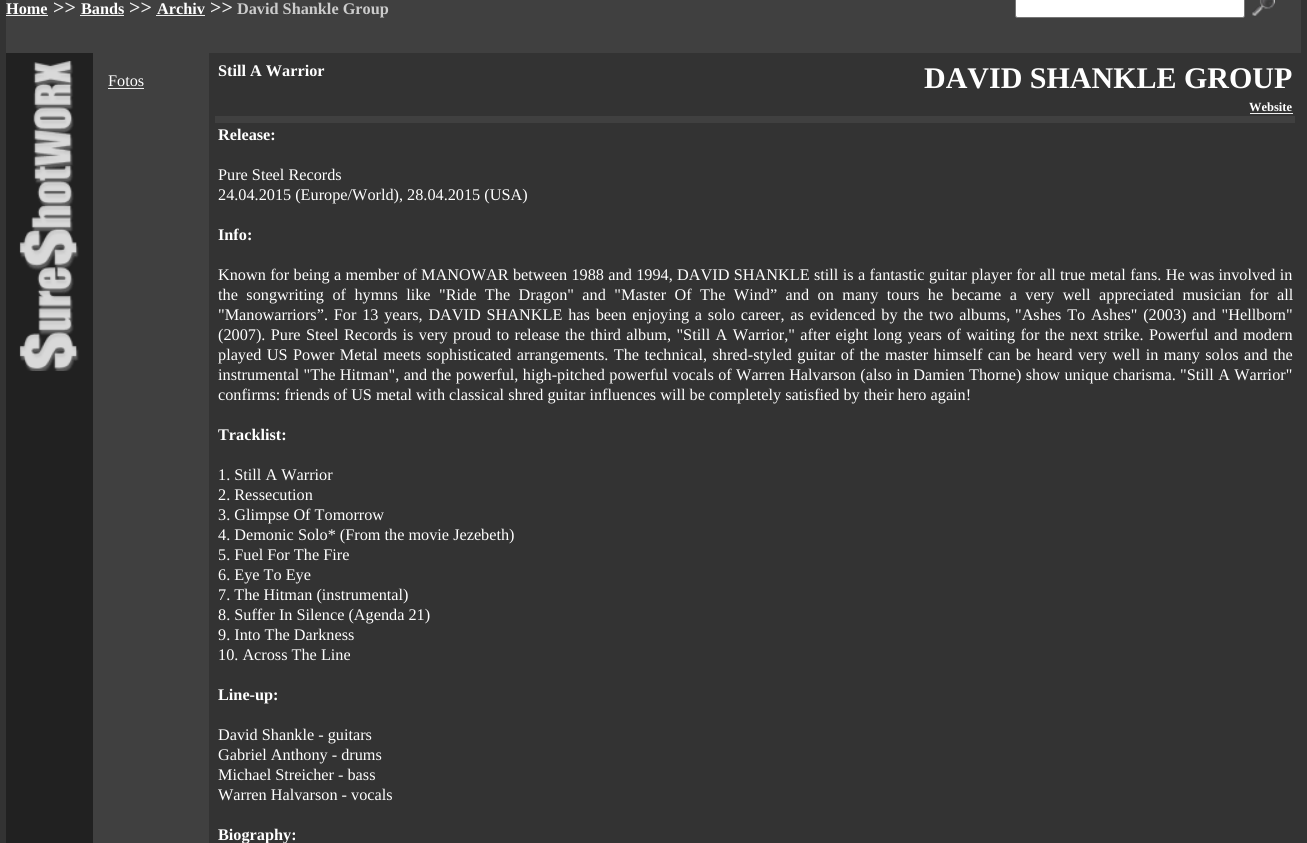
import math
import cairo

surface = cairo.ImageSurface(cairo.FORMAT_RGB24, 1307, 843)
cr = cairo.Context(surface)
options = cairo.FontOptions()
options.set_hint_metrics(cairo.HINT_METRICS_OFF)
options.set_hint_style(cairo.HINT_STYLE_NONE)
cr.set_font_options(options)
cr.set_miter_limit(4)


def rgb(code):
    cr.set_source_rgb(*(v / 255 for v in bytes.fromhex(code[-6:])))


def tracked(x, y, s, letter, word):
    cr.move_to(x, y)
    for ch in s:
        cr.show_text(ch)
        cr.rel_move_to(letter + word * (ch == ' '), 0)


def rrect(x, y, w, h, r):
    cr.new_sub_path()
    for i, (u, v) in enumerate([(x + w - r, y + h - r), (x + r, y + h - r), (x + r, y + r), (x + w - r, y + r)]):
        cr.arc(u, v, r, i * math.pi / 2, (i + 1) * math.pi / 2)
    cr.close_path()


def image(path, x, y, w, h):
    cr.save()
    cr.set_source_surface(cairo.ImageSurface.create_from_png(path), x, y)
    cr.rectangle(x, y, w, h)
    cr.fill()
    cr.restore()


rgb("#333333")
cr.paint()
for x, y, w, h, color in [
    (6, 0, 1295, 53, "#404040"),
    (6, 15, 42, 1, "#eeeeee"),
    (80, 15, 44, 1, "#eeeeee"),
    (156, 15, 49, 1, "#eeeeee"),
]:
    rgb(color)
    cr.rectangle(x, y, w, h)
    cr.fill()
rgb("#ffffff")
rrect(1015.5, -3.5, 229, 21, 2)
cr.fill_preserve()
rgb("#767676")
cr.set_line_width(1)
cr.stroke()
image("img/1.png", 1252, 0, 23, 16)
rgb("#212121")
cr.rectangle(6, 53, 87, 790)
cr.fill()
image("img/2.png", 19, 60, 60, 311)
for x, y, w, h, color in [
    (93, 53, 11, 790, "#404040"),
    (104, 53, 94, 790, "#404040"),
    (108, 88, 36, 1, "#eeeeee"),
    (198, 53, 11, 790, "#404040"),
    (1250, 113, 43, 1, "#eeeeee"),
    (215, 116, 1080, 7, "#404040"),
]:
    rgb(color)
    cr.rectangle(x, y, w, h)
    cr.fill()
cr.select_font_face("Liberation Serif", cairo.FONT_SLANT_NORMAL, cairo.FONT_WEIGHT_BOLD)
cr.set_font_size(16.25)
rgb("#ffffff")
cr.move_to(6, 14)
cr.show_text("Home")
cr.set_font_size(20)
rgb("#eeeeee")
cr.move_to(53, 14)
cr.show_text(">>")
cr.set_font_size(16.25)
rgb("#ffffff")
cr.move_to(81, 14)
cr.show_text("Bands")
cr.set_font_size(20)
rgb("#eeeeee")
cr.move_to(129, 14)
cr.show_text(">>")
cr.set_font_size(16.25)
rgb("#ffffff")
cr.move_to(157, 14)
cr.show_text("Archiv")
cr.set_font_size(20)
rgb("#eeeeee")
cr.move_to(210, 14)
cr.show_text(">>")
cr.set_font_size(16.25)
rgb("#cccccc")
cr.move_to(237, 14)
cr.show_text("David Shankle Group")
cr.select_font_face("Liberation Serif")
rgb("#ffffff")
cr.move_to(108, 86)
cr.show_text("Fotos")
cr.select_font_face("Liberation Serif", cairo.FONT_SLANT_NORMAL, cairo.FONT_WEIGHT_BOLD)
cr.move_to(218, 76)
cr.show_text("Still A Warrior")
cr.set_font_size(30)
cr.move_to(924, 88)
cr.show_text("DAVID SHANKLE GROUP")
cr.set_font_size(12.5)
cr.move_to(1249, 111)
cr.show_text("Website")
cr.set_font_size(16.25)
cr.move_to(218, 140)
cr.show_text("Release:")
cr.select_font_face("Liberation Serif")
cr.move_to(218, 180)
cr.show_text("Pure Steel Records")
cr.move_to(218, 200)
cr.show_text("24.04.2015 (Europe/World), 28.04.2015 (USA)")
cr.select_font_face("Liberation Serif", cairo.FONT_SLANT_NORMAL, cairo.FONT_WEIGHT_BOLD)
cr.move_to(218, 240)
cr.show_text("Info:")
cr.select_font_face("Liberation Serif")
tracked(218, 280, "Known for being a member of MANOWAR between 1988 and 1994, DAVID SHANKLE still is a fantastic guitar player for all true metal fans. He was involved in", 0, 0.3)
tracked(218, 300, "the songwriting of hymns like \"Ride The Dragon\" and \"Master Of The Wind” and on many tours he became a very well appreciated musician for all", 0, 4.4)
tracked(218, 320, "\"Manowarriors”. For 13 years, DAVID SHANKLE has been enjoying a solo career, as evidenced by the two albums,", 0, 1.75)
tracked(1015, 320, "\"Ashes To Ashes\" (2003) and \"Hellborn\"", 0, 1.75)
tracked(218, 340, "(2007). Pure Steel Records is very proud to release the third album, \"Still A Warrior,\" after eight long years of waiting for the next strike. Powerful and modern", 0, 1.35)
tracked(218, 360, "played US Power Metal meets sophisticated arrangements. The technical, shred-styled guitar of the master himself can be heard very well in many solos and the", 0, 1.35)
tracked(218, 380, "instrumental \"The Hitman\", and the powerful, high-pitched powerful vocals of Warren Halvarson (also in Damien Thorne) show unique charisma. \"Still A Warrior\"", 0, 0.3)
cr.move_to(218, 400)
cr.show_text("confirms: friends of US metal with classical shred guitar influences will be completely satisfied by their hero again!")
cr.select_font_face("Liberation Serif", cairo.FONT_SLANT_NORMAL, cairo.FONT_WEIGHT_BOLD)
cr.move_to(218, 440)
cr.show_text("Tracklist:")
cr.select_font_face("Liberation Serif")
for x, y, s in [
    (218, 480, "1. Still A Warrior"),
    (218, 500, "2. Ressecution"),
    (218, 520, "3. Glimpse Of Tomorrow"),
    (218, 540, "4. Demonic Solo* (From the movie Jezebeth)"),
    (218, 560, "5. Fuel For The Fire"),
    (218, 580, "6. Eye To Eye"),
    (218, 600, "7. The Hitman (instrumental)"),
    (218, 620, "8. Suffer In Silence (Agenda 21)"),
    (218, 640, "9. Into The Darkness"),
    (218, 660, "10. Across The Line"),
]:
    cr.move_to(x, y)
    cr.show_text(s)
cr.select_font_face("Liberation Serif", cairo.FONT_SLANT_NORMAL, cairo.FONT_WEIGHT_BOLD)
cr.move_to(218, 700)
cr.show_text("Line-up:")
cr.select_font_face("Liberation Serif")
for x, y, s in [
    (218, 740, "David Shankle - guitars"),
    (218, 760, "Gabriel Anthony - drums"),
    (218, 780, "Michael Streicher - bass"),
    (218, 800, "Warren Halvarson - vocals"),
]:
    cr.move_to(x, y)
    cr.show_text(s)
cr.select_font_face("Liberation Serif", cairo.FONT_SLANT_NORMAL, cairo.FONT_WEIGHT_BOLD)
cr.move_to(218, 840)
cr.show_text("Biography:")
surface.write_to_png("page.png")
